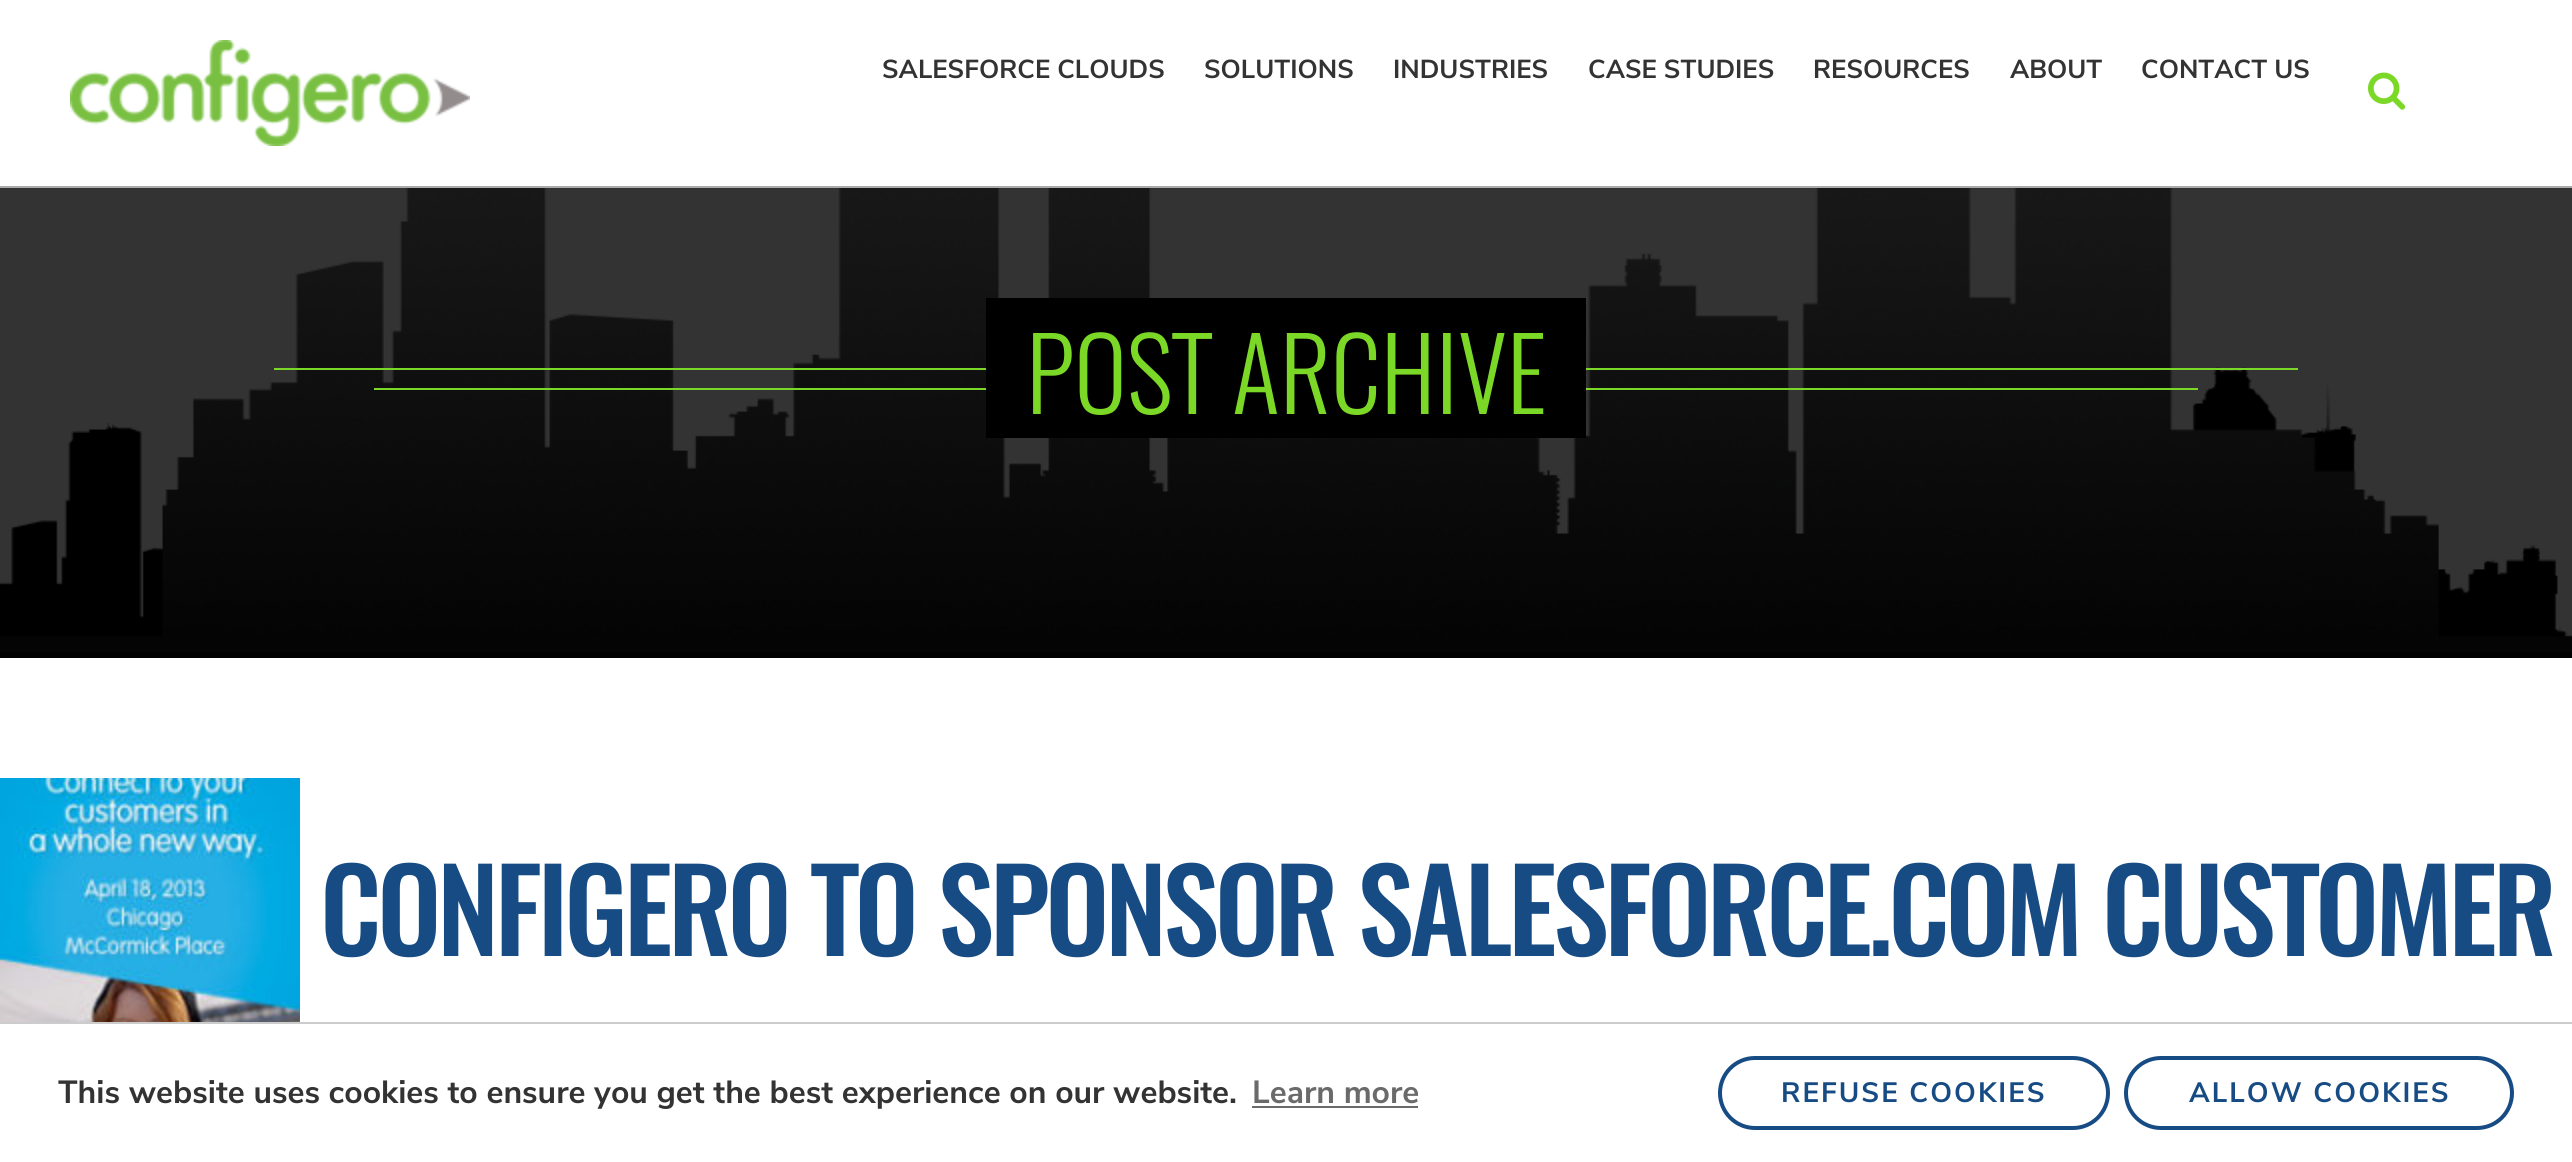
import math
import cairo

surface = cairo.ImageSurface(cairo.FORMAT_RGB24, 2572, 1162)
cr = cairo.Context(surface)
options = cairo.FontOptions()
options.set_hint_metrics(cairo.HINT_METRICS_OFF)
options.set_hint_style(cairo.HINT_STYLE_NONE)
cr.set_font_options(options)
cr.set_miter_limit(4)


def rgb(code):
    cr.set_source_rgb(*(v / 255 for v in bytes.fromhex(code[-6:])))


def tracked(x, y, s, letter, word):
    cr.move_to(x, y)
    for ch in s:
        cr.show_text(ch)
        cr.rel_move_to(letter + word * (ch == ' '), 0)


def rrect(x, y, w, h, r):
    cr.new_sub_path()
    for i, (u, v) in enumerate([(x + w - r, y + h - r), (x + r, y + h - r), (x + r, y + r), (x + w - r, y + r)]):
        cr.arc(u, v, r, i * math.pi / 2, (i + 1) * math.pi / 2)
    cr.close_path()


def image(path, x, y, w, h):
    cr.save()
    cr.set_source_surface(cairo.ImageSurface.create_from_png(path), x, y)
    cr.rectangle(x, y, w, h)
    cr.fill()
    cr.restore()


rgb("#ffffff")
cr.paint()
rgb("#aaaaaa")
cr.rectangle(0, 186, 2572, 2)
cr.fill()
image("img/1.png", 70, 40, 400, 106)
image("img/2.png", 2368, 72, 38, 38)
rgb("#000000")
cr.rectangle(0, 652, 2572, 6)
cr.fill()
image("img/3.png", 0, 188, 2572, 464)
for x, y, w, h, color in [
    (274, 368, 2024, 2, "#7bd826"),
    (374, 388, 1824, 2, "#7bd826"),
    (986, 298, 600, 140, "#000000"),
]:
    rgb(color)
    cr.rectangle(x, y, w, h)
    cr.fill()
image("img/4.png", 0, 778, 300, 244)
rgb("#cccccc")
cr.rectangle(0, 1022, 2572, 2)
cr.fill()
rgb("#6a6a6a")
cr.rectangle(1252, 1106, 166, 2)
cr.fill()
rrect(1720, 1058, 388, 70, 35)
rgb("#174b84")
cr.set_line_width(4)
cr.stroke()
rrect(2126, 1058, 386, 70, 35)
cr.stroke()
cr.select_font_face("Nunito Sans", cairo.FONT_SLANT_NORMAL, cairo.FONT_WEIGHT_BOLD)
cr.set_font_size(26)
rgb("#333333")
for x, y, s in [
    (882, 78, "SALESFORCE CLOUDS"),
    (1204, 78, "SOLUTIONS"),
    (1393, 78, "INDUSTRIES"),
    (1588, 78, "CASE STUDIES"),
    (1813, 78, "RESOURCES"),
    (2010, 78, "ABOUT"),
    (2141, 78, "CONTACT US"),
]:
    cr.move_to(x, y)
    cr.show_text(s)
cr.select_font_face("Oswald Light")
cr.set_font_size(100)
rgb("#7bd826")
cr.move_to(1026, 414)
cr.show_text("POST ARCHIVE")
cr.select_font_face("Oswald Medium")
cr.set_font_size(114)
rgb("#174b84")
tracked(320, 956, "CONFIGERO TO SPONSOR SALESFORCE.COM CUSTOMER", -4.4, 0)
cr.select_font_face("Nunito Sans", cairo.FONT_SLANT_NORMAL, cairo.FONT_WEIGHT_BOLD)
cr.set_font_size(32)
rgb("#333333")
cr.move_to(58, 1103)
cr.show_text("This website uses cookies to ensure you get the best experience on our website.")
rgb("#6a6a6a")
cr.move_to(1252, 1103)
cr.show_text("Learn more")
cr.set_font_size(28)
rgb("#174b84")
tracked(1781, 1102, "REFUSE COOKIES", 2, 0)
tracked(2189, 1102, "ALLOW COOKIES", 2, 0)
surface.write_to_png("page.png")
